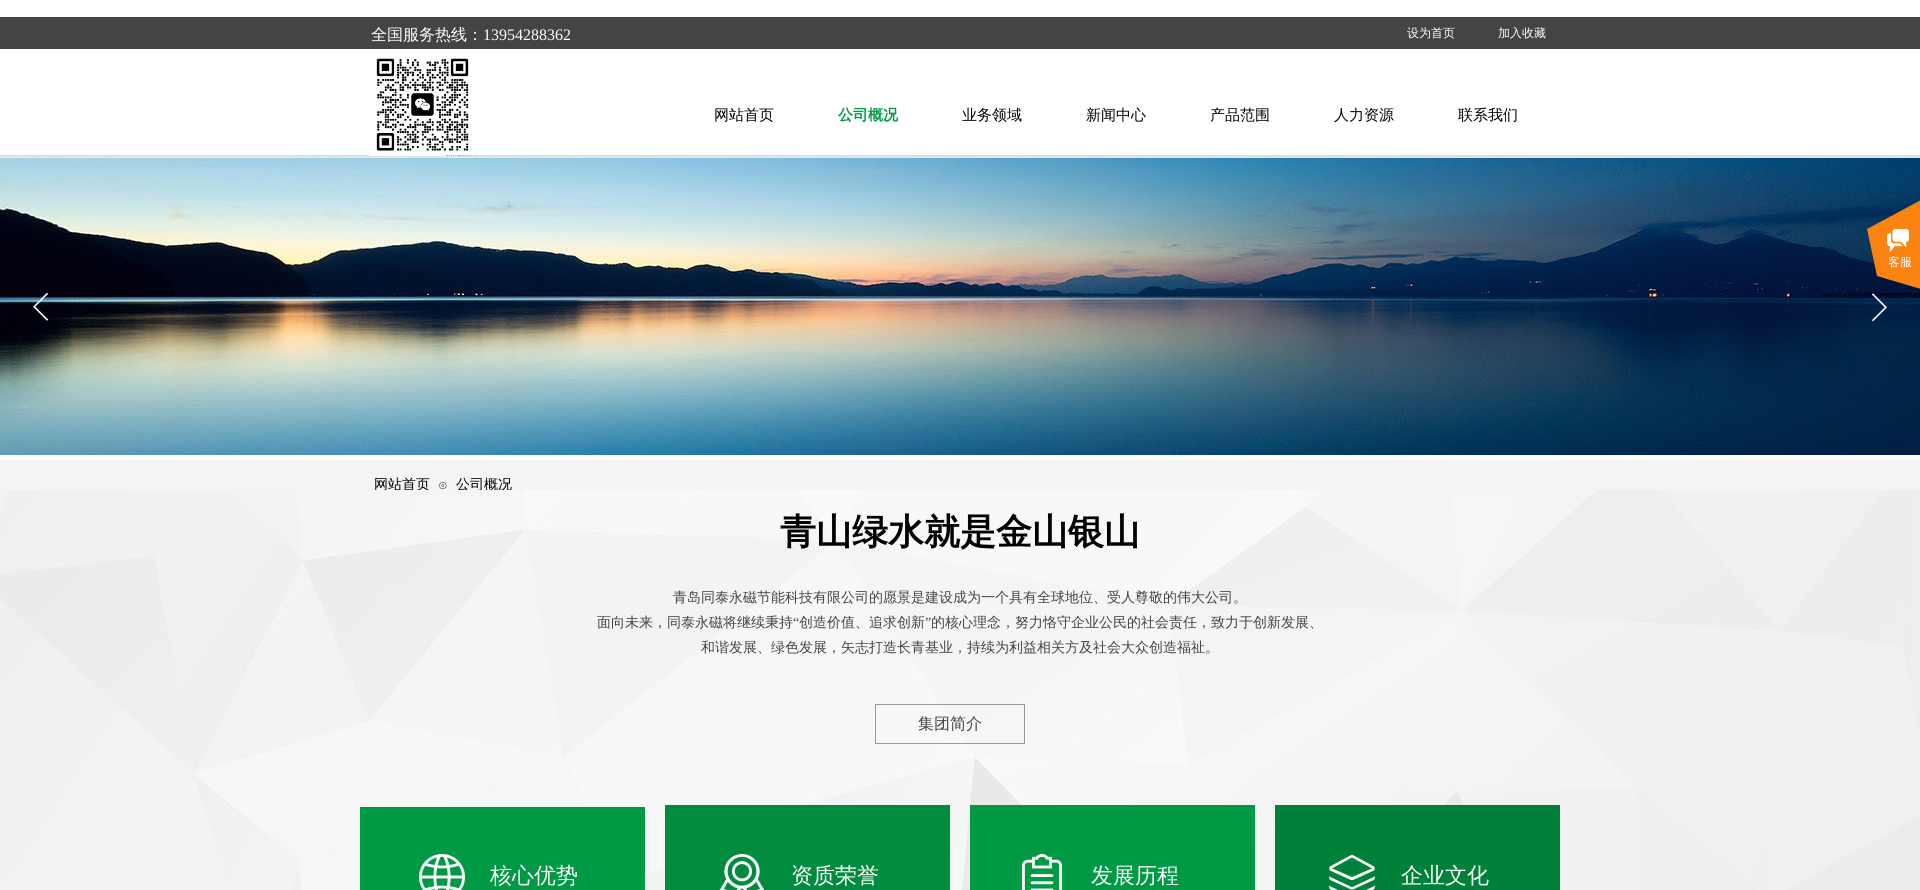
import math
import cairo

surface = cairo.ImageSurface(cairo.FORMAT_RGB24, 1920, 890)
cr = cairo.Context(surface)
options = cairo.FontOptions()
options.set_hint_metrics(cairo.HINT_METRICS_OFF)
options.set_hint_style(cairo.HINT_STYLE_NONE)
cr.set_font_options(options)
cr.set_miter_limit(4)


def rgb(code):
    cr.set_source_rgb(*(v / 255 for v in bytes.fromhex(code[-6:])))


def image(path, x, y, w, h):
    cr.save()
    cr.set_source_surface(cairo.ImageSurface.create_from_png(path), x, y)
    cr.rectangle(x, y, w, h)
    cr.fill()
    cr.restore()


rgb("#ffffff")
cr.paint()
rgb("#444444")
cr.rectangle(0, 17, 1920, 32)
cr.fill()
image("img/2.png", 0, 155, 1920, 3)
image("img/1.png", 369, 58, 107, 98)
image("img/3.png", 0, 158, 1920, 297)
image("img/4.png", 32, 292, 17, 29)
image("img/5.png", 1871, 293, 17, 29)
rgb("#f4f4f4")
cr.rectangle(0, 460, 1920, 30)
cr.fill()
image("img/11.png", 1867, 200, 53, 89)
cr.select_font_face("WenQuanYi Zen Hei Medium")
cr.set_font_size(16)
rgb("#ffffff")
cr.move_to(371, 40)
cr.show_text("全国服务热线：")
cr.select_font_face("Liberation Serif")
cr.move_to(483, 40)
cr.show_text("13954288362")
cr.select_font_face("WenQuanYi Zen Hei Medium")
cr.set_font_size(12)
cr.move_to(1407, 37)
cr.show_text("设为首页")
cr.move_to(1498, 37)
cr.show_text("加入收藏")
cr.set_font_size(15)
rgb("#000000")
cr.move_to(714, 120)
cr.show_text("网站首页")
cr.select_font_face("WenQuanYi Zen Hei", cairo.FONT_SLANT_NORMAL, cairo.FONT_WEIGHT_BOLD)
rgb("#009944")
cr.move_to(838, 120)
cr.show_text("公司概况")
cr.select_font_face("WenQuanYi Zen Hei Medium")
rgb("#000000")
for x, y, s in [
    (962, 120, "业务领域"),
    (1086, 120, "新闻中心"),
    (1210, 120, "产品范围"),
    (1334, 120, "人力资源"),
    (1458, 120, "联系我们"),
]:
    cr.move_to(x, y)
    cr.show_text(s)
cr.set_font_size(14)
cr.move_to(374, 489)
cr.show_text("网站首页")
cr.set_font_size(12)
rgb("#434343")
cr.move_to(438, 489)
cr.show_text("⊙")
cr.set_font_size(14)
rgb("#000000")
cr.move_to(456, 489)
cr.show_text("公司概况")
image("img/6.png", 0, 490, 1920, 400)
cr.select_font_face("WenQuanYi Zen Hei", cairo.FONT_SLANT_NORMAL, cairo.FONT_WEIGHT_BOLD)
cr.set_font_size(36)
cr.move_to(780, 544)
cr.show_text("青山绿水就是金山银山")
cr.select_font_face("WenQuanYi Zen Hei Medium")
cr.set_font_size(14)
rgb("#434343")
cr.move_to(673, 602)
cr.show_text("青岛同泰永磁节能科技有限公司的愿景是建设成为一个具有全球地位、受人尊敬的伟大公司。")
cr.move_to(597, 627)
cr.show_text("面向未来，同泰永磁将继续秉持")
cr.select_font_face("Liberation Serif")
cr.move_to(793, 627)
cr.show_text("“")
cr.select_font_face("WenQuanYi Zen Hei Medium")
cr.move_to(799, 627)
cr.show_text("创造价值、追求创新")
cr.select_font_face("Liberation Serif")
cr.move_to(925, 627)
cr.show_text("”")
cr.select_font_face("WenQuanYi Zen Hei Medium")
cr.move_to(931, 627)
cr.show_text("的核心理念，努力恪守企业公民的社会责任，致力于创新发展、")
cr.move_to(701, 652)
cr.show_text("和谐发展、绿色发展，矢志打造长青基业，持续为利益相关方及社会大众创造福祉。")
cr.rectangle(875.5, 704.5, 149, 39)
rgb("#999999")
cr.set_line_width(1)
cr.stroke()
cr.set_font_size(16)
rgb("#434343")
cr.move_to(918, 729)
cr.show_text("集团简介")
for x, y, w, h, color in [
    (360, 807, 285, 83, "#009944"),
    (665, 805, 285, 85, "#008b3e"),
    (970, 805, 285, 85, "#009944"),
    (1275, 805, 285, 85, "#008139"),
]:
    rgb(color)
    cr.rectangle(x, y, w, h)
    cr.fill()
image("img/7.png", 419, 854, 46, 36)
cr.set_font_size(22)
rgb("#ffffff")
cr.move_to(490, 883)
cr.show_text("核心优势")
image("img/8.png", 719, 854, 46, 36)
cr.move_to(791, 883)
cr.show_text("资质荣誉")
image("img/9.png", 1022, 854, 40, 36)
cr.move_to(1091, 883)
cr.show_text("发展历程")
image("img/10.png", 1329, 855, 46, 35)
cr.move_to(1401, 883)
cr.show_text("企业文化")
cr.set_font_size(12)
cr.move_to(1888, 266)
cr.show_text("客服")
surface.write_to_png("page.png")
